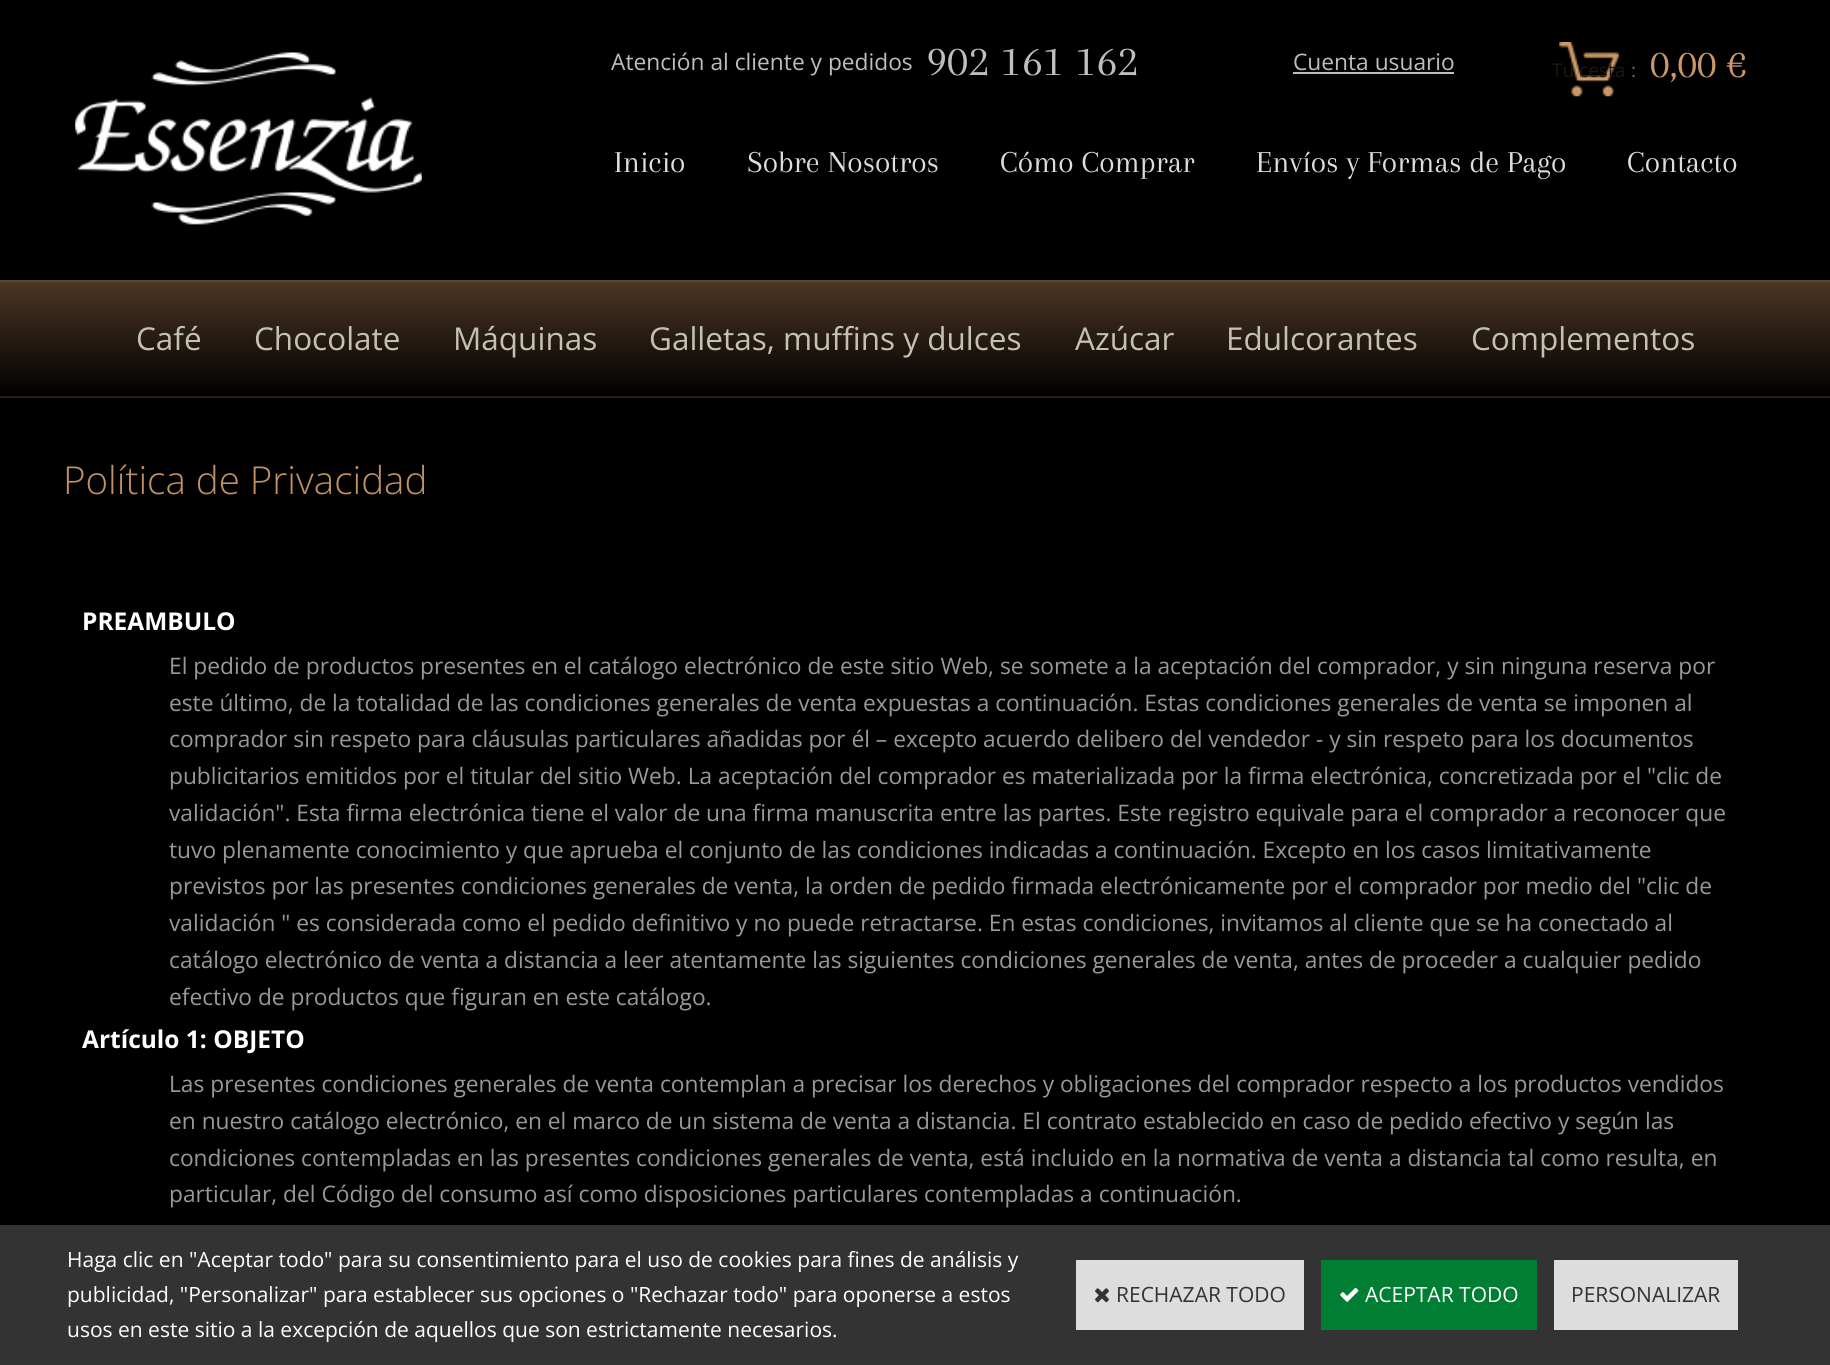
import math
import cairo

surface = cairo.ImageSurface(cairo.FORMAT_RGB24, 1830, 1365)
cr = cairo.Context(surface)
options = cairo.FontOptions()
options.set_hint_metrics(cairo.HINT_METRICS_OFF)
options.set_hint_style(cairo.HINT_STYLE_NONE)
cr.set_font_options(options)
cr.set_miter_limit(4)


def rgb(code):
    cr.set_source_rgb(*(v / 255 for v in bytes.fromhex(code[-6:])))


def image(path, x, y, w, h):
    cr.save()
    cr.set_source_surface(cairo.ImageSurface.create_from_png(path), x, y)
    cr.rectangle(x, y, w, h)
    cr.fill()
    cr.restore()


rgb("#000000")
cr.paint()
rgb("#bebebe")
cr.rectangle(1293, 72, 161, 2)
cr.fill()
image("img/1.png", 75, 52, 347, 173)
image("img/2.png", 1559, 42, 60, 55)
gradient = cairo.LinearGradient(915, 282, 915, 396)
gradient.add_color_stop_rgba(0, 0.294, 0.212, 0.133, 1)
gradient.add_color_stop_rgba(1, 0, 0, 0, 1)
cr.set_source(gradient)
cr.rectangle(0, 282, 1830, 110)
cr.fill()
for x, y, w, h, color in [
    (0, 280, 1830, 2, "#5b4632"),
    (0, 396, 1830, 2, "#2a1e12"),
    (0, 1225, 1830, 140, "#333333"),
    (1076, 1260, 228, 70, "#dddddd"),
]:
    rgb(color)
    cr.rectangle(x, y, w, h)
    cr.fill()
image("img/3.png", 1095, 1288, 14, 15)
rgb("#007e33")
cr.rectangle(1321, 1260, 216, 70)
cr.fill()
image("img/4.png", 1340, 1287, 19, 15)
rgb("#dddddd")
cr.rectangle(1554, 1260, 184, 70)
cr.fill()
cr.select_font_face("Open Sans")
cr.set_font_size(22.75)
rgb("#bebebe")
cr.move_to(611, 70)
cr.show_text("Atención al cliente y pedidos")
cr.select_font_face("Arapey")
cr.set_font_size(45.5)
cr.move_to(926, 75)
cr.show_text("902 161 162")
cr.select_font_face("Open Sans")
cr.set_font_size(22.75)
cr.move_to(1293, 70)
cr.show_text("Cuenta usuario")
cr.select_font_face("Arapey")
cr.set_font_size(42)
rgb("#cc9966")
cr.move_to(1650, 77)
cr.show_text("0,00 €")
cr.select_font_face("Open Sans")
cr.set_font_size(19)
rgb("#1e170f")
cr.move_to(1552, 77)
cr.show_text("Tu cesta")
rgb("#666666")
cr.move_to(1631, 77)
cr.show_text(":")
cr.select_font_face("Arapey")
cr.set_font_size(31.5)
rgb("#dddddd")
for x, y, s in [
    (614, 172, "Inicio"),
    (747, 172, "Sobre Nosotros"),
    (1000, 172, "Cómo Comprar"),
    (1256, 172, "Envíos y Formas de Pago"),
    (1627, 172, "Contacto"),
]:
    cr.move_to(x, y)
    cr.show_text(s)
cr.select_font_face("Open Sans")
rgb("#c3c1b1")
for x, y, s in [
    (136, 350, "Café"),
    (254, 350, "Chocolate"),
    (453, 350, "Máquinas"),
    (649, 350, "Galletas, muffins y dulces"),
    (1075, 350, "Azúcar"),
    (1226, 350, "Edulcorantes"),
    (1471, 350, "Complementos"),
]:
    cr.move_to(x, y)
    cr.show_text(s)
cr.select_font_face("Open Sans Light")
cr.set_font_size(38.5)
rgb("#c19161")
cr.move_to(63, 494)
cr.show_text("Política de Privacidad")
cr.select_font_face("Open Sans", cairo.FONT_SLANT_NORMAL, cairo.FONT_WEIGHT_BOLD)
cr.set_font_size(24.5)
rgb("#ffffff")
cr.move_to(82, 630)
cr.show_text("PREAMBULO")
cr.select_font_face("Open Sans")
cr.set_font_size(22.75)
rgb("#999999")
for x, y, s in [
    (169, 674, "El pedido de productos presentes en el catálogo electrónico de este sitio Web, se somete a la aceptación del comprador, y sin ninguna reserva por"),
    (169, 711, "este último, de la totalidad de las condiciones generales de venta expuestas a continuación. Estas condiciones generales de venta se imponen al"),
    (169, 747, "comprador sin respeto para cláusulas particulares añadidas por él – excepto acuerdo delibero del vendedor - y sin respeto para los documentos"),
    (169, 784, "publicitarios emitidos por el titular del sitio Web. La aceptación del comprador es materializada por la firma electrónica, concretizada por el \"clic de"),
    (169, 821, "validación\". Esta firma electrónica tiene el valor de una firma manuscrita entre las partes. Este registro equivale para el comprador a reconocer que"),
    (169, 858, "tuvo plenamente conocimiento y que aprueba el conjunto de las condiciones indicadas a continuación. Excepto en los casos limitativamente"),
    (169, 894, "previstos por las presentes condiciones generales de venta, la orden de pedido firmada electrónicamente por el comprador por medio del \"clic de"),
    (169, 931, "validación \" es considerada como el pedido definitivo y no puede retractarse. En estas condiciones, invitamos al cliente que se ha conectado al"),
    (169, 968, "catálogo electrónico de venta a distancia a leer atentamente las siguientes condiciones generales de venta, antes de proceder a cualquier pedido"),
    (169, 1005, "efectivo de productos que figuran en este catálogo."),
]:
    cr.move_to(x, y)
    cr.show_text(s)
cr.select_font_face("Open Sans", cairo.FONT_SLANT_NORMAL, cairo.FONT_WEIGHT_BOLD)
cr.set_font_size(24.5)
rgb("#ffffff")
cr.move_to(82, 1048)
cr.show_text("Artículo 1: OBJETO")
cr.select_font_face("Open Sans")
cr.set_font_size(22.75)
rgb("#999999")
for x, y, s in [
    (169, 1092, "Las presentes condiciones generales de venta contemplan a precisar los derechos y obligaciones del comprador respecto a los productos vendidos"),
    (169, 1129, "en nuestro catálogo electrónico, en el marco de un sistema de venta a distancia. El contrato establecido en caso de pedido efectivo y según las"),
    (169, 1166, "condiciones contempladas en las presentes condiciones generales de venta, está incluido en la normativa de venta a distancia tal como resulta, en"),
    (169, 1202, "particular, del Código del consumo así como disposiciones particulares contempladas a continuación."),
]:
    cr.move_to(x, y)
    cr.show_text(s)
cr.set_font_size(21)
rgb("#ffffff")
for x, y, s in [
    (67, 1267, "Haga clic en \"Aceptar todo\" para su consentimiento para el uso de cookies para fines de análisis y"),
    (67, 1302, "publicidad, \"Personalizar\" para establecer sus opciones o \"Rechazar todo\" para oponerse a estos"),
    (67, 1337, "usos en este sitio a la excepción de aquellos que son estrictamente necesarios."),
]:
    cr.move_to(x, y)
    cr.show_text(s)
rgb("#333333")
cr.move_to(1116, 1302)
cr.show_text("RECHAZAR TODO")
rgb("#ffffff")
cr.move_to(1365, 1302)
cr.show_text("ACEPTAR TODO")
rgb("#333333")
cr.move_to(1571, 1302)
cr.show_text("PERSONALIZAR")
surface.write_to_png("page.png")
